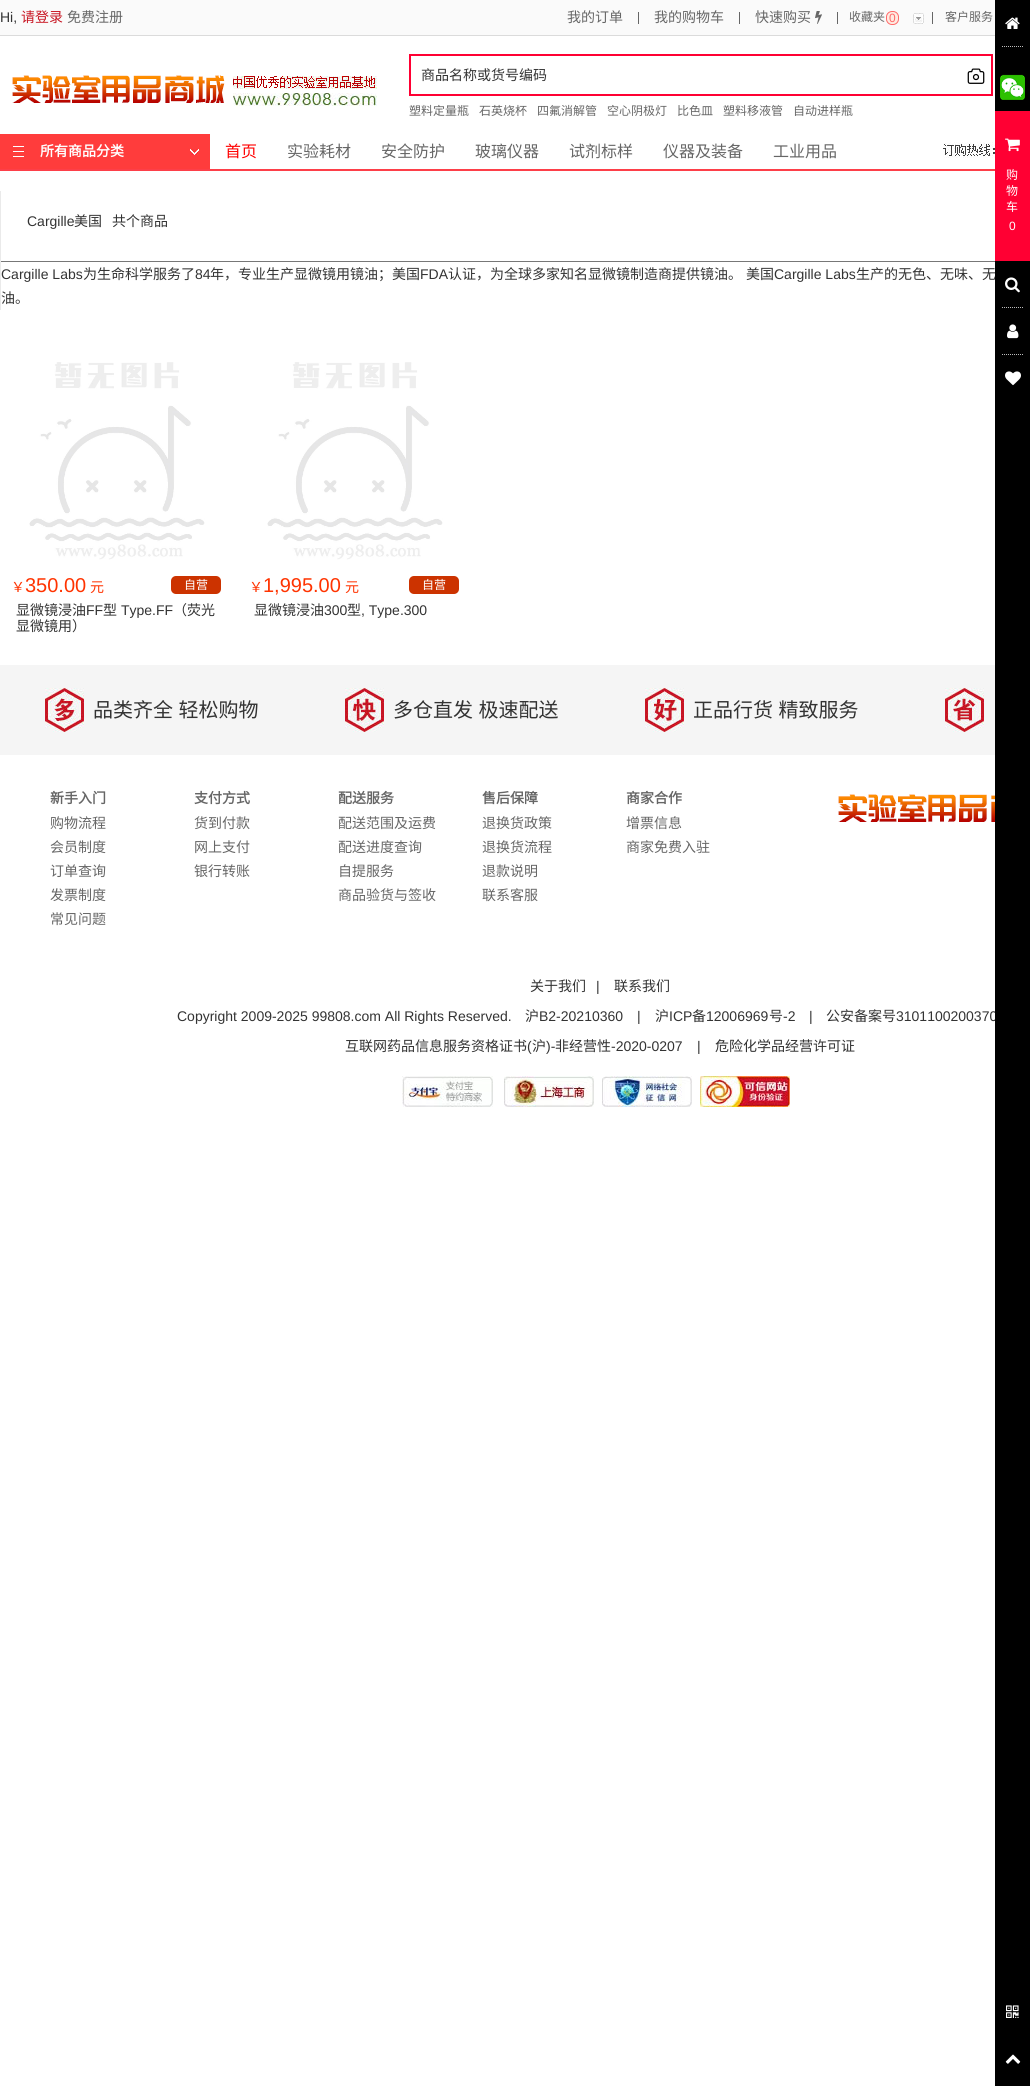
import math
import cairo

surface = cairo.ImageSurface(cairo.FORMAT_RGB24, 1030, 2086)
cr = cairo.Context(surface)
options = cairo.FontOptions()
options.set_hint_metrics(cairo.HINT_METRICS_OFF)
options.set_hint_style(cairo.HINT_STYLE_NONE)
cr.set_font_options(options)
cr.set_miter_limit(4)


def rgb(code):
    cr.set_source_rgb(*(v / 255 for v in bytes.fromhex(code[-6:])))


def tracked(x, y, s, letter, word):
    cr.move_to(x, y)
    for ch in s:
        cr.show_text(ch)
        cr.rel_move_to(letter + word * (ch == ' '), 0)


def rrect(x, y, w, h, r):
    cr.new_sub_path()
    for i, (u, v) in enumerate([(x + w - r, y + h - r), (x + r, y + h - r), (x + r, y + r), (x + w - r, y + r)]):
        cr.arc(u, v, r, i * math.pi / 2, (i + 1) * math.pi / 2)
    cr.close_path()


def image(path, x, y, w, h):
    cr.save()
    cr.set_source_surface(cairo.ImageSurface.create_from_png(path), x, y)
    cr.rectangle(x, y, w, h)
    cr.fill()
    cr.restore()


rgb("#ffffff")
cr.paint()
for x, y, w, h, color in [
    (0, 0, 995, 35, "#fafafa"),
    (0, 35, 995, 1, "#dbdbdb"),
    (638, 12, 1, 12, "#666666"),
    (739, 12, 1, 12, "#666666"),
    (837, 12, 1, 12, "#666666"),
]:
    rgb(color)
    cr.rectangle(x, y, w, h)
    cr.fill()
image("img/1.png", 815, 11, 7, 13)
cr.rectangle(932, 12, 1, 12)
cr.fill()
rgb("#ffebe2")
rrect(886.5, 11.5, 12, 13, 5.5)
cr.fill_preserve()
rgb("#ff6969")
cr.set_line_width(1)
cr.stroke()
image("img/2.png", 913, 13, 11, 11)
image("img/3.png", 12, 75, 365, 31)
cr.rectangle(410, 55, 582, 40)
rgb("#ff0033")
cr.set_line_width(2)
cr.stroke()
image("img/4.png", 967, 68, 18, 16)
rgb("#ff3c3c")
cr.rectangle(0, 134, 210, 35)
cr.fill()
image("img/5.png", 13, 146, 11, 11)
image("img/6.png", 190, 149, 9, 6)
image("img/7.png", 943, 142, 52, 21)
for x, y, w, h, color in [
    (0, 169, 995, 2, "#fd3f49"),
    (0, 191, 1, 119, "#eaeaea"),
    (1, 261, 994, 1, "#777777"),
]:
    rgb(color)
    cr.rectangle(x, y, w, h)
    cr.fill()
image("img/16.png", 29, 362, 176, 198)
rgb("#cc3300")
rrect(171, 576, 50, 18, 5)
cr.fill()
image("img/16.png", 267, 362, 176, 198)
rrect(409, 576, 50, 18, 5)
cr.fill()
rgb("#f5f5f5")
cr.rectangle(0, 665, 995, 90)
cr.fill()
image("img/17.png", 45, 688, 39, 44)
image("img/18.png", 345, 688, 39, 44)
image("img/19.png", 645, 688, 39, 44)
image("img/20.png", 945, 688, 39, 44)
image("img/21.png", 838, 794, 157, 28)
image("img/22.png", 402, 1076, 91, 31)
image("img/23.png", 504, 1076, 90, 31)
image("img/24.png", 602, 1076, 90, 31)
image("img/25.png", 700, 1076, 90, 31)
cr.select_font_face("Liberation Sans")
cr.set_font_size(14)
rgb("#333333")
cr.move_to(0, 22)
cr.show_text("Hi,")
cr.select_font_face("Noto Sans CJK SC")
rgb("#c81623")
cr.move_to(21, 22)
cr.show_text("请登录")
rgb("#666666")
for x, y, s in [
    (67, 22, "免费注册"),
    (567, 22, "我的订单"),
    (654, 22, "我的购物车"),
    (755, 22, "快速购买"),
]:
    cr.move_to(x, y)
    cr.show_text(s)
cr.set_font_size(12)
cr.move_to(849, 21)
cr.show_text("收藏夹")
cr.select_font_face("Liberation Sans")
rgb("#ff6969")
cr.move_to(889, 22)
cr.show_text("0")
cr.select_font_face("Noto Sans CJK SC")
rgb("#666666")
cr.move_to(945, 21)
cr.show_text("客户服务")
cr.set_font_size(14)
rgb("#333333")
cr.move_to(421, 80)
cr.show_text("商品名称或货号编码")
cr.set_font_size(12)
rgb("#666666")
for x, y, s in [
    (409, 115, "塑料定量瓶"),
    (479, 115, "石英烧杯"),
    (537, 115, "四氟消解管"),
    (607, 115, "空心阴极灯"),
    (677, 115, "比色皿"),
    (723, 115, "塑料移液管"),
    (793, 115, "自动进样瓶"),
]:
    cr.move_to(x, y)
    cr.show_text(s)
cr.select_font_face("Noto Sans CJK SC", cairo.FONT_SLANT_NORMAL, cairo.FONT_WEIGHT_BOLD)
cr.set_font_size(14)
rgb("#ffffff")
cr.move_to(40, 156)
cr.show_text("所有商品分类")
cr.select_font_face("Noto Sans CJK SC")
cr.set_font_size(16)
rgb("#ff0000")
cr.move_to(225, 157)
cr.show_text("首页")
rgb("#666666")
for x, y, s in [
    (287, 157, "实验耗材"),
    (381, 157, "安全防护"),
    (475, 157, "玻璃仪器"),
    (569, 157, "试剂标样"),
    (663, 157, "仪器及装备"),
    (773, 157, "工业用品"),
]:
    cr.move_to(x, y)
    cr.show_text(s)
cr.select_font_face("Liberation Sans")
cr.set_font_size(14)
rgb("#333333")
cr.move_to(27, 226)
cr.show_text("Cargille")
cr.select_font_face("Noto Sans CJK SC")
cr.move_to(74, 226)
cr.show_text("美国")
cr.move_to(112, 226)
cr.show_text("共个商品")
cr.select_font_face("Liberation Sans")
cr.move_to(1, 279)
cr.show_text("Cargille Labs")
cr.select_font_face("Noto Sans CJK SC")
cr.move_to(83, 279)
cr.show_text("为生命科学服务了")
cr.select_font_face("Liberation Sans")
cr.move_to(195, 279)
cr.show_text("84")
cr.select_font_face("Noto Sans CJK SC")
cr.move_to(210, 279)
cr.show_text("年，专业生产显微镜用镜油；美国")
cr.select_font_face("Liberation Sans")
cr.move_to(420, 279)
cr.show_text("FDA")
cr.select_font_face("Noto Sans CJK SC")
cr.move_to(448, 279)
cr.show_text("认证，为全球多家知名显微镜制造商提供镜油。")
cr.move_to(746, 279)
cr.show_text("美国")
cr.select_font_face("Liberation Sans")
cr.move_to(774, 279)
cr.show_text("Cargille Labs")
cr.select_font_face("Noto Sans CJK SC")
cr.move_to(856, 279)
cr.show_text("生产的无色、无味、无")
cr.move_to(1, 303)
cr.show_text("油。")
rgb("#ff3300")
cr.move_to(11, 592)
cr.show_text("￥")
cr.select_font_face("Liberation Sans")
cr.set_font_size(20)
cr.move_to(25, 592)
cr.show_text("350.00")
cr.select_font_face("Noto Sans CJK SC")
cr.set_font_size(14)
cr.move_to(90, 592)
cr.show_text("元")
cr.set_font_size(12)
rgb("#ffffff")
cr.move_to(184, 589)
cr.show_text("自营")
cr.set_font_size(14)
rgb("#333333")
cr.move_to(16, 615)
cr.show_text("显微镜浸油")
cr.select_font_face("Liberation Sans")
cr.move_to(86, 615)
cr.show_text("FF")
cr.select_font_face("Noto Sans CJK SC")
cr.move_to(103, 615)
cr.show_text("型")
cr.select_font_face("Liberation Sans")
cr.move_to(121, 615)
cr.show_text("Type.FF")
cr.select_font_face("Noto Sans CJK SC")
cr.move_to(173, 615)
cr.show_text("（荧光")
cr.move_to(16, 631)
cr.show_text("显微镜用）")
rgb("#ff3300")
cr.move_to(249, 592)
cr.show_text("￥")
cr.select_font_face("Liberation Sans")
cr.set_font_size(20)
cr.move_to(263, 592)
cr.show_text("1,995.00")
cr.select_font_face("Noto Sans CJK SC")
cr.set_font_size(14)
cr.move_to(345, 592)
cr.show_text("元")
cr.set_font_size(12)
rgb("#ffffff")
cr.move_to(422, 589)
cr.show_text("自营")
cr.set_font_size(14)
rgb("#333333")
cr.move_to(254, 615)
cr.show_text("显微镜浸油")
cr.select_font_face("Liberation Sans")
cr.move_to(324, 615)
cr.show_text("300")
cr.select_font_face("Noto Sans CJK SC")
cr.move_to(347, 615)
cr.show_text("型")
cr.select_font_face("Liberation Sans")
cr.move_to(361, 615)
cr.show_text(", Type.300")
cr.select_font_face("Noto Sans CJK SC")
cr.set_font_size(20)
for x, y, s in [
    (93, 717, "品类齐全 轻松购物"),
    (393, 717, "多仓直发 极速配送"),
    (693, 717, "正品行货 精致服务"),
]:
    tracked(x, y, s, 0, 1)
cr.select_font_face("Noto Sans CJK SC", cairo.FONT_SLANT_NORMAL, cairo.FONT_WEIGHT_BOLD)
cr.set_font_size(14)
rgb("#666666")
cr.move_to(50, 803)
cr.show_text("新手入门")
cr.select_font_face("Noto Sans CJK SC")
for x, y, s in [
    (50, 828, "购物流程"),
    (50, 852, "会员制度"),
    (50, 876, "订单查询"),
    (50, 900, "发票制度"),
    (50, 924, "常见问题"),
]:
    cr.move_to(x, y)
    cr.show_text(s)
cr.select_font_face("Noto Sans CJK SC", cairo.FONT_SLANT_NORMAL, cairo.FONT_WEIGHT_BOLD)
cr.move_to(194, 803)
cr.show_text("支付方式")
cr.select_font_face("Noto Sans CJK SC")
for x, y, s in [
    (194, 828, "货到付款"),
    (194, 852, "网上支付"),
    (194, 876, "银行转账"),
]:
    cr.move_to(x, y)
    cr.show_text(s)
cr.select_font_face("Noto Sans CJK SC", cairo.FONT_SLANT_NORMAL, cairo.FONT_WEIGHT_BOLD)
cr.move_to(338, 803)
cr.show_text("配送服务")
cr.select_font_face("Noto Sans CJK SC")
for x, y, s in [
    (338, 828, "配送范围及运费"),
    (338, 852, "配送进度查询"),
    (338, 876, "自提服务"),
    (338, 900, "商品验货与签收"),
]:
    cr.move_to(x, y)
    cr.show_text(s)
cr.select_font_face("Noto Sans CJK SC", cairo.FONT_SLANT_NORMAL, cairo.FONT_WEIGHT_BOLD)
cr.move_to(482, 803)
cr.show_text("售后保障")
cr.select_font_face("Noto Sans CJK SC")
for x, y, s in [
    (482, 828, "退换货政策"),
    (482, 852, "退换货流程"),
    (482, 876, "退款说明"),
    (482, 900, "联系客服"),
]:
    cr.move_to(x, y)
    cr.show_text(s)
cr.select_font_face("Noto Sans CJK SC", cairo.FONT_SLANT_NORMAL, cairo.FONT_WEIGHT_BOLD)
cr.move_to(626, 803)
cr.show_text("商家合作")
cr.select_font_face("Noto Sans CJK SC")
cr.move_to(626, 828)
cr.show_text("增票信息")
cr.move_to(626, 852)
cr.show_text("商家免费入驻")
rgb("#333333")
cr.move_to(530, 991)
cr.show_text("关于我们")
cr.select_font_face("Liberation Sans")
cr.move_to(596, 991)
cr.show_text("|")
cr.select_font_face("Noto Sans CJK SC")
cr.move_to(614, 991)
cr.show_text("联系我们")
cr.select_font_face("Liberation Sans")
cr.move_to(177, 1021)
cr.show_text("Copyright 2009-2025 99808.com All Rights Reserved.")
cr.select_font_face("Noto Sans CJK SC")
cr.move_to(525, 1021)
cr.show_text("沪")
cr.select_font_face("Liberation Sans")
cr.move_to(539, 1021)
cr.show_text("B2-20210360")
cr.move_to(637, 1021)
cr.show_text("|")
cr.select_font_face("Noto Sans CJK SC")
cr.move_to(655, 1021)
cr.show_text("沪")
cr.select_font_face("Liberation Sans")
cr.move_to(669, 1021)
cr.show_text("ICP")
cr.select_font_face("Noto Sans CJK SC")
cr.move_to(692, 1021)
cr.show_text("备")
cr.select_font_face("Liberation Sans")
cr.move_to(706, 1021)
cr.show_text("12006969")
cr.select_font_face("Noto Sans CJK SC")
cr.move_to(769, 1021)
cr.show_text("号")
cr.select_font_face("Liberation Sans")
cr.move_to(783, 1021)
cr.show_text("-2")
cr.move_to(809, 1021)
cr.show_text("|")
cr.select_font_face("Noto Sans CJK SC")
cr.move_to(826, 1021)
cr.show_text("公安备案号")
cr.select_font_face("Liberation Sans")
cr.move_to(896, 1021)
cr.show_text("3101100200370")
rgb("#000000")
cr.rectangle(995, 0, 35, 2086)
cr.fill()
image("img/15.png", 1005, 2054, 16, 10)
image("img/14.png", 1006, 2005, 13, 13)
image("img/13.png", 1005, 371, 16, 15)
cr.new_path()
cr.move_to(1002, 307.5)
cr.line_to(1023, 307.5)
cr.move_to(1002, 354.5)
cr.line_to(1023, 354.5)
rgb("#bbbbbb")
cr.set_line_width(1)
cr.set_dash([1, 1])
cr.stroke()
image("img/12.png", 1007, 324, 12, 15)
image("img/11.png", 1005, 277, 15, 16)
rgb("#ff0033")
cr.rectangle(995, 111, 35, 150)
cr.fill()
cr.set_font_size(12)
rgb("#ffffff")
cr.move_to(1009, 230)
cr.show_text("0")
cr.select_font_face("Noto Sans CJK SC")
for x, y, s in [
    (1006, 211, "车"),
    (1006, 195, "物"),
    (1006, 179, "购"),
]:
    cr.move_to(x, y)
    cr.show_text(s)
image("img/10.png", 1005, 138, 15, 14)
image("img/9.png", 1000, 74, 25, 26)
image("img/8.png", 1005, 17, 15, 12)
cr.new_path()
cr.move_to(1002, 46.5)
cr.line_to(1023, 46.5)
rgb("#bbbbbb")
cr.stroke()
cr.set_font_size(14)
rgb("#333333")
cr.move_to(345, 1051)
cr.show_text("互联网药品信息服务资格证书")
cr.select_font_face("Liberation Sans")
cr.move_to(527, 1051)
cr.show_text("(")
cr.select_font_face("Noto Sans CJK SC")
cr.move_to(532, 1051)
cr.show_text("沪")
cr.select_font_face("Liberation Sans")
cr.move_to(546, 1051)
cr.show_text(")-")
cr.select_font_face("Noto Sans CJK SC")
cr.move_to(555, 1051)
cr.show_text("非经营性")
cr.select_font_face("Liberation Sans")
cr.move_to(611, 1051)
cr.show_text("-2020-0207")
cr.move_to(697, 1051)
cr.show_text("|")
cr.select_font_face("Noto Sans CJK SC")
cr.move_to(715, 1051)
cr.show_text("危险化学品经营许可证")
surface.write_to_png("page.png")
